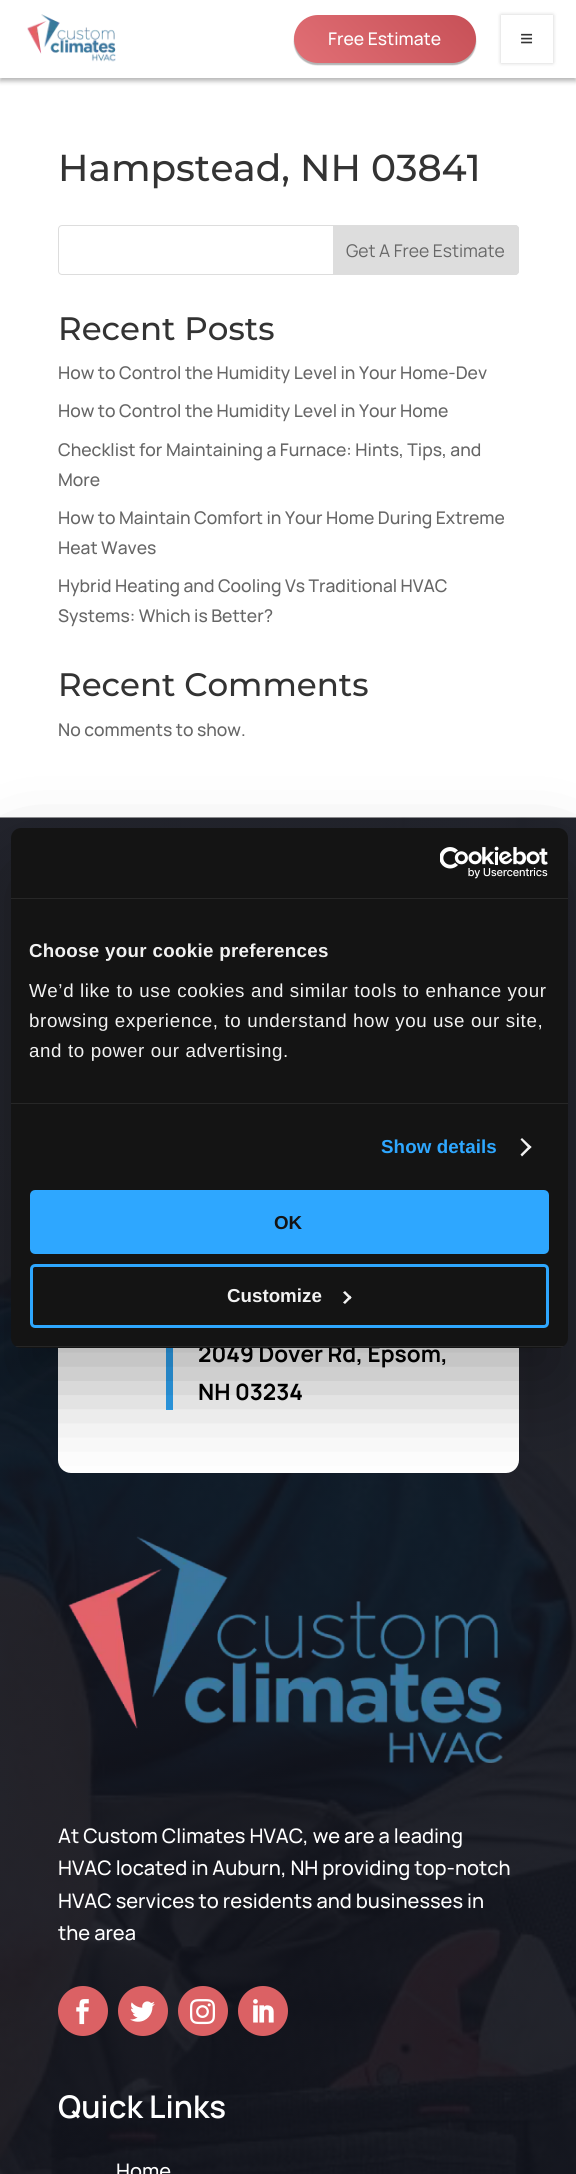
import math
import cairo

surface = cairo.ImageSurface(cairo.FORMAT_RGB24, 576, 2174)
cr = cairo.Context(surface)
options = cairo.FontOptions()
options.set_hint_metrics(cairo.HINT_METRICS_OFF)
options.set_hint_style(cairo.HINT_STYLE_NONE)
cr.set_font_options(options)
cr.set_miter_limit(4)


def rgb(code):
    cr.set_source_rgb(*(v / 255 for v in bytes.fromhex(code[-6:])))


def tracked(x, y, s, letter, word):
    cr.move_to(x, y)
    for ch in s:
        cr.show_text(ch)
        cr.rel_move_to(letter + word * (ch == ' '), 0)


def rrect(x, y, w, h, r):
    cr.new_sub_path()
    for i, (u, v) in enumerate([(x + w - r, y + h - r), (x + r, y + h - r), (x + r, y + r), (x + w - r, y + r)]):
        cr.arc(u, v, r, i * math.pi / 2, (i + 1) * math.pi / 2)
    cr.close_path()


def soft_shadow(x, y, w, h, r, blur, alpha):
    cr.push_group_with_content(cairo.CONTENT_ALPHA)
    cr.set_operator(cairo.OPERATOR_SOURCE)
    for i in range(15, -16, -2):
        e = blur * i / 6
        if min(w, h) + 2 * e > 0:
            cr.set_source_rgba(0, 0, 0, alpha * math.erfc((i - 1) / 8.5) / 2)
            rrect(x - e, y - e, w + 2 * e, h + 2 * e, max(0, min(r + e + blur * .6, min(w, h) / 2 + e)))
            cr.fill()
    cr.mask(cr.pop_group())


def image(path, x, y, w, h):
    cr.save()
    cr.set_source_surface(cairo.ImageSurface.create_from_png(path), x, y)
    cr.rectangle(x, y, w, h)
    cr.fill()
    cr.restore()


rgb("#ffffff")
cr.paint()
rgb("#000000")
soft_shadow(0, 4, 576, 77, 0, 2.5, 0.3)
rgb("#ffffff")
cr.rectangle(0, 0, 576, 78)
cr.fill()
image("img/1.png", 27, 14, 89, 48)
rgb("#000000")
soft_shadow(294, 18, 182, 47, 23.5, 0.5, 0.3)
gradient = cairo.LinearGradient(328, 96, 443, -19)
gradient.add_color_stop_rgba(0, 0.882, 0.435, 0.459, 1)
gradient.add_color_stop_rgba(0.99, 0.78, 0.314, 0.341, 1)
cr.set_source(gradient)
rrect(294, 15, 182, 48, 24)
cr.fill()
cr.save()
cr.set_fill_rule(cairo.FILL_RULE_EVEN_ODD)
cr.new_path()
cr.move_to(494, 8)
cr.line_to(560, 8)
cr.line_to(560, 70)
cr.line_to(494, 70)
cr.close_path()
cr.move_to(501, 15)
cr.line_to(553, 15)
cr.line_to(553, 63)
cr.line_to(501, 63)
cr.close_path()
cr.clip()
rgb("#000000")
soft_shadow(501, 15, 52, 48, 0, 2, 0.2)
cr.restore()
rrect(58.5, 225.5, 460, 49, 3.5)
rgb("#dddddd")
cr.set_line_width(1)
cr.stroke()
cr.new_path()
cr.move_to(333.5, 225.5)
cr.line_to(515, 225.5)
cr.curve_to(517, 225.5, 518.5, 227, 518.5, 229)
cr.line_to(518.5, 271)
cr.curve_to(518.5, 273, 517, 274.5, 515, 274.5)
cr.line_to(333.5, 274.5)
cr.close_path()
cr.fill_preserve()
cr.stroke()
image("img/2.png", 0, 817, 576, 1357)
rgb("#ffffff")
rrect(58, 1243, 461, 230, 13)
cr.fill()
rgb("#2ea3f2")
cr.rectangle(166, 1348, 7, 62)
cr.fill()
image("img/3.png", 68, 1536, 435, 227)
rgb("#db6164")
cr.arc(83, 2011, 25, 0, 2 * math.pi)
cr.fill()
image("img/4.png", 76, 1999, 13, 26)
cr.arc(143, 2011, 25, 0, 2 * math.pi)
cr.fill()
image("img/5.png", 130, 2001, 25, 21)
cr.arc(203, 2011, 25, 0, 2 * math.pi)
cr.fill()
image("img/6.png", 190, 1999, 25, 26)
cr.arc(263, 2011, 25, 0, 2 * math.pi)
cr.fill()
image("img/7.png", 253, 1999, 21, 24)
rgb("#000000")
soft_shadow(11, 868, 557, 520, 10, 42.5, 0.3)
cr.select_font_face("Manrope Medium")
cr.set_font_size(17.5)
rgb("#ffffff")
cr.move_to(328, 45)
cr.show_text("Free Estimate")
cr.select_font_face("Liberation Sans")
cr.set_font_size(22.5)
rgb("#333333")
cr.move_to(520, 46)
cr.show_text("≡")
cr.select_font_face("Montserrat Medium")
cr.set_font_size(37.5)
cr.move_to(58, 181)
cr.show_text("Hampstead, NH 03841")
cr.select_font_face("Manrope")
cr.set_font_size(17.5)
rgb("#666666")
cr.move_to(346, 257)
cr.show_text("Get A Free Estimate")
cr.select_font_face("Montserrat Medium")
cr.set_font_size(32.5)
rgb("#333333")
cr.move_to(58, 340)
cr.show_text("Recent Posts")
cr.select_font_face("Manrope Medium")
cr.set_font_size(17.5)
rgb("#666666")
for x, y, s in [
    (58, 379, "How to Control the Humidity Level in Your Home-Dev"),
    (58, 417, "How to Control the Humidity Level in Your Home"),
    (58, 456, "Checklist for Maintaining a Furnace: Hints, Tips, and"),
    (58, 486, "More"),
    (58, 524, "How to Maintain Comfort in Your Home During Extreme"),
    (58, 554, "Heat Waves"),
    (58, 592, "Hybrid Heating and Cooling Vs Traditional HVAC"),
    (58, 622, "Systems: Which is Better?"),
]:
    cr.move_to(x, y)
    cr.show_text(s)
cr.select_font_face("Montserrat Medium")
cr.set_font_size(32.5)
rgb("#333333")
cr.move_to(58, 696)
cr.show_text("Recent Comments")
cr.select_font_face("Manrope Medium")
cr.set_font_size(17.5)
rgb("#666666")
cr.move_to(58, 736)
cr.show_text("No comments to show.")
cr.select_font_face("Manrope", cairo.FONT_SLANT_NORMAL, cairo.FONT_WEIGHT_BOLD)
cr.set_font_size(22.5)
rgb("#000000")
cr.move_to(198, 1362)
cr.show_text("2049 Dover Rd, Epsom,")
cr.move_to(198, 1400)
cr.show_text("NH 03234")
cr.select_font_face("Manrope Medium")
cr.set_font_size(20)
rgb("#ffffff")
for x, y, s in [
    (58, 1843, "At Custom Climates HVAC, we are a leading"),
    (58, 1875, "HVAC located in Auburn, NH providing top-notch"),
    (58, 1908, "HVAC services to residents and businesses in"),
    (58, 1940, "the area"),
]:
    cr.move_to(x, y)
    cr.show_text(s)
cr.select_font_face("Manrope SemiBold")
cr.set_font_size(31.25)
cr.move_to(58, 2118)
cr.show_text("Quick Links")
cr.select_font_face("Manrope Medium")
cr.set_font_size(20)
cr.move_to(116, 2178)
cr.show_text("Home")
rgb("#141414")
rrect(11, 828, 557, 520, 10)
cr.fill()
rgb("#272727")
cr.rectangle(11, 898, 557, 1)
cr.fill()
image("img/8.png", 440, 846, 108, 33)
cr.rectangle(11, 1103, 557, 1)
cr.fill()
cr.select_font_face("Liberation Sans", cairo.FONT_SLANT_NORMAL, cairo.FONT_WEIGHT_BOLD)
cr.set_font_size(18.75)
rgb("#f2f2f2")
tracked(29, 957, "Choose your cookie preferences", 0.3, 0)
cr.select_font_face("Liberation Sans")
for x, y, s in [
    (29, 997, "We’d like to use cookies and similar tools to enhance your"),
    (29, 1027, "browsing experience, to understand how you use our site,"),
    (29, 1057, "and to power our advertising."),
]:
    tracked(x, y, s, 0.62, 0)
cr.select_font_face("Liberation Sans", cairo.FONT_SLANT_NORMAL, cairo.FONT_WEIGHT_BOLD)
rgb("#2ea7ff")
tracked(381, 1153, "Show details", 0.1, 0)
rgb("#f2f2f2")
cr.new_path()
cr.move_to(522, 1138)
cr.line_to(531.5, 1147)
cr.line_to(529.5, 1149)
cr.line_to(520.5, 1139.5)
cr.close_path()
cr.fill()
cr.new_path()
cr.move_to(529.5, 1145.5)
cr.line_to(531.5, 1147)
cr.line_to(522, 1156.5)
cr.line_to(520.5, 1154.5)
cr.close_path()
cr.fill()
cr.save()
rrect(11, 828, 557, 520, 10)
cr.clip()
cr.set_source_rgba(1, 1, 1, 0.08)
cr.rectangle(11, 1346, 557, 1)
cr.fill()
cr.restore()
rgb("#2ea7ff")
rrect(31.5, 1191.5, 516, 61, 3.5)
cr.fill_preserve()
cr.set_line_width(3)
cr.stroke()
rgb("#141414")
cr.move_to(274, 1229)
cr.show_text("OK")
rrect(31.5, 1265.5, 516, 61, 3.5)
rgb("#2ea7ff")
cr.stroke()
rgb("#f2f2f2")
cr.move_to(227, 1302)
cr.show_text("Customize")
cr.new_path()
cr.move_to(345, 1291)
cr.line_to(351.5, 1297.5)
cr.line_to(350, 1299.5)
cr.line_to(343, 1292.5)
cr.close_path()
cr.fill()
cr.new_path()
cr.move_to(350, 1295.5)
cr.line_to(351.5, 1297.5)
cr.line_to(345, 1304)
cr.line_to(343, 1302.5)
cr.close_path()
cr.fill()
surface.write_to_png("page.png")
